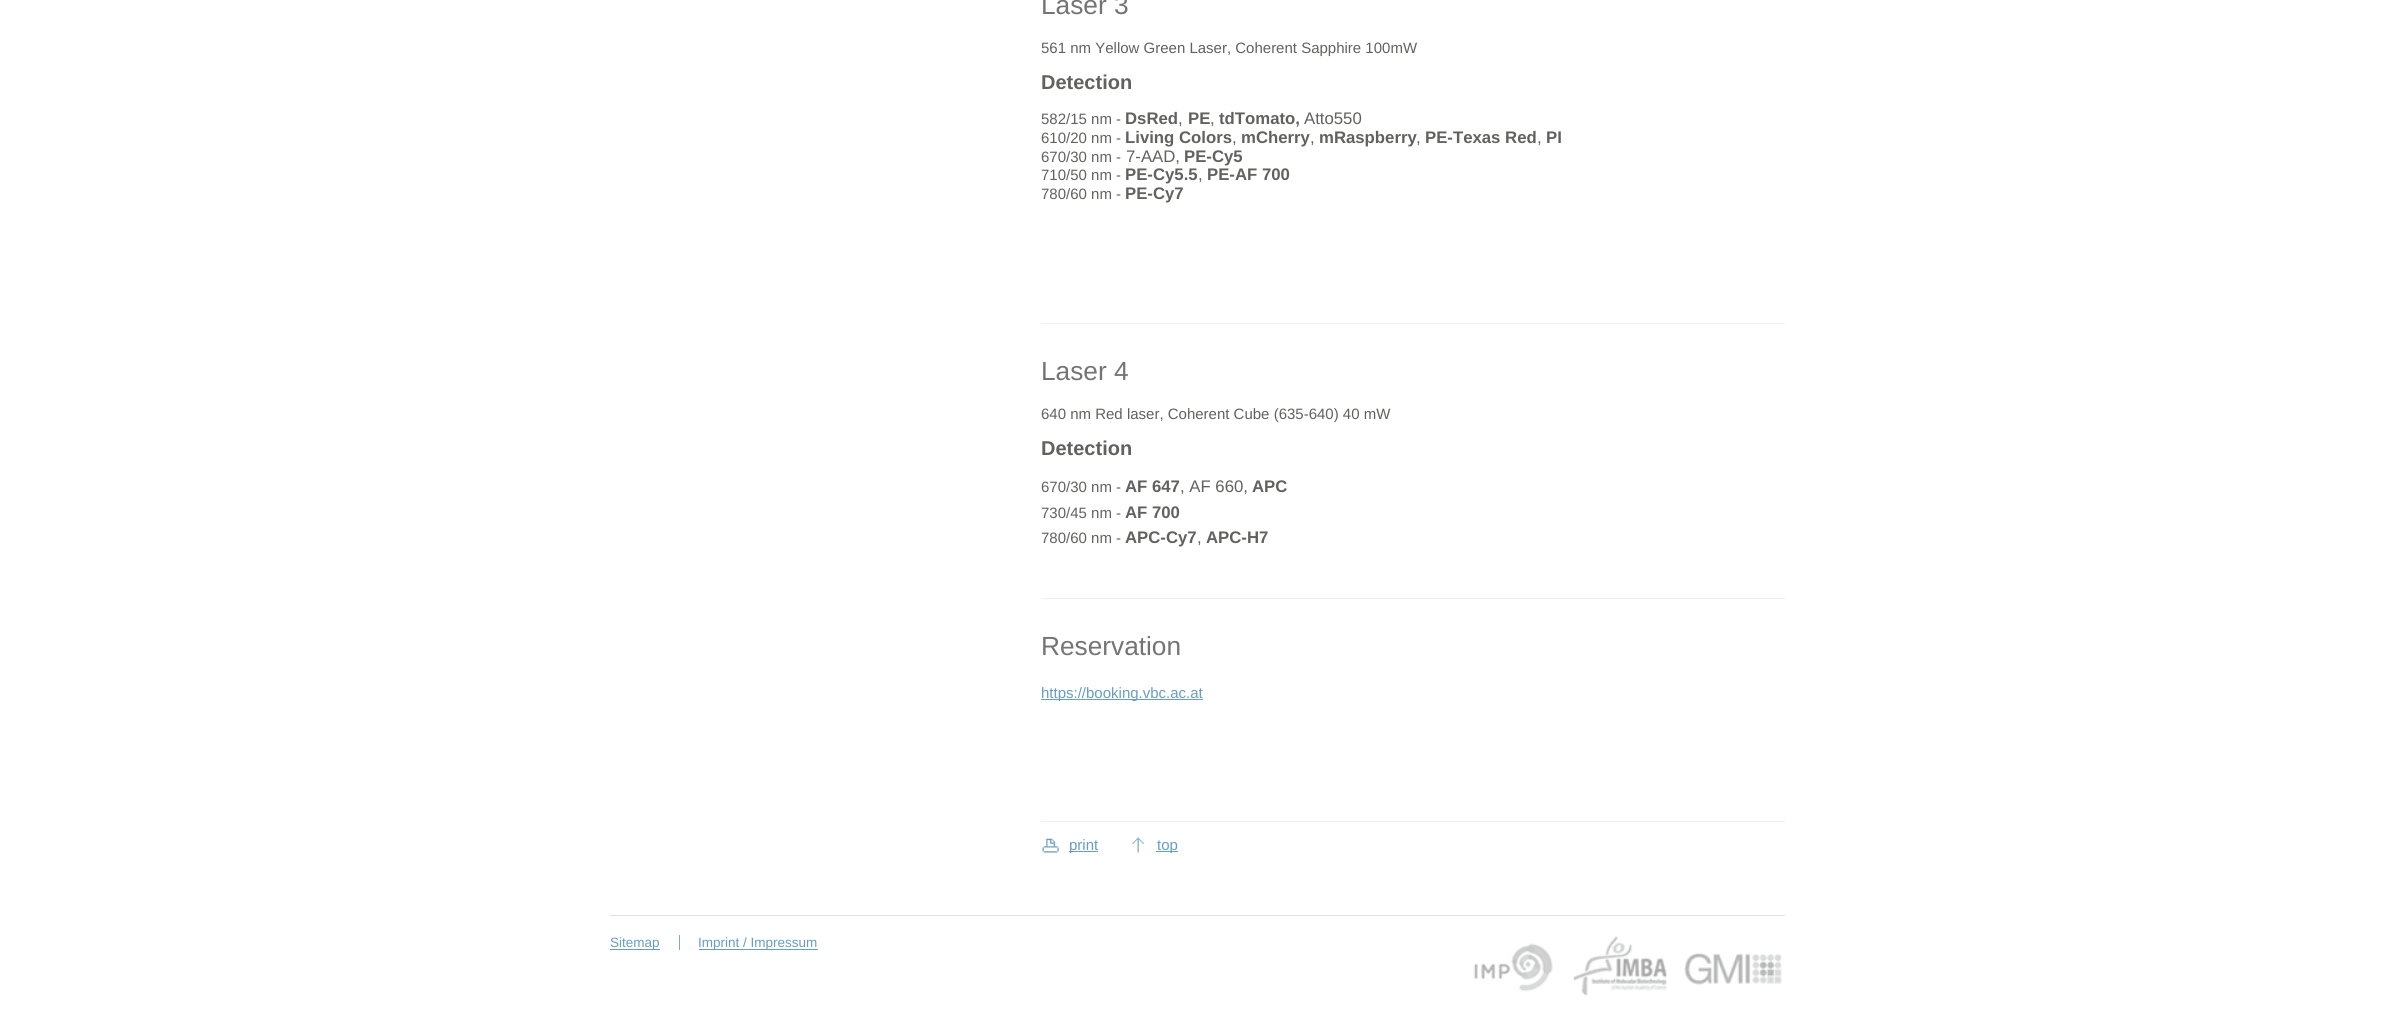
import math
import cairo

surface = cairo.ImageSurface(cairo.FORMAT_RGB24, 2395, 1022)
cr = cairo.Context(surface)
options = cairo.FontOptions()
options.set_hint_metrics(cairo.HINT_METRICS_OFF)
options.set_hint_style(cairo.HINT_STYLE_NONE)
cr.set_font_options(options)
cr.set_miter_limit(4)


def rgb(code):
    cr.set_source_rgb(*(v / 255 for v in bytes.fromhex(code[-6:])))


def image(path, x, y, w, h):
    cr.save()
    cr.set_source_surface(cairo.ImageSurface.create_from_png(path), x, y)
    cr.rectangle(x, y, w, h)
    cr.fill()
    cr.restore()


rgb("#ffffff")
cr.paint()
for x, y, w, h, color in [
    (1041, 323, 744, 1, "#efefef"),
    (1041, 598, 744, 1, "#efefef"),
    (1041, 699, 162, 1, "#679dc2"),
    (1041, 821, 744, 1, "#efefef"),
]:
    rgb(color)
    cr.rectangle(x, y, w, h)
    cr.fill()
image("img/1.png", 1042, 838, 17, 15)
rgb("#679dc2")
cr.rectangle(1069, 851, 29, 1)
cr.fill()
image("img/2.png", 1132, 837, 12, 16)
for x, y, w, h, color in [
    (1156, 851, 22, 1, "#679dc2"),
    (610, 915, 1175, 1, "#e0dfdf"),
    (679, 935, 1, 15, "#80a9c5"),
    (610, 949, 50, 1, "#679dc2"),
    (699, 949, 119, 1, "#679dc2"),
]:
    rgb(color)
    cr.rectangle(x, y, w, h)
    cr.fill()
image("img/3.png", 1473, 943, 80, 49)
image("img/4.png", 1573, 936, 94, 60)
image("img/5.png", 1684, 953, 98, 32)
cr.select_font_face("Liberation Sans")
cr.set_font_size(26.25)
rgb("#757373")
cr.move_to(1041, 14)
cr.show_text("Laser 3")
cr.set_font_size(15)
rgb("#626160")
cr.move_to(1041, 53)
cr.show_text("561 nm Yellow Green Laser, Coherent Sapphire 100mW")
cr.select_font_face("Liberation Sans", cairo.FONT_SLANT_NORMAL, cairo.FONT_WEIGHT_BOLD)
cr.set_font_size(20)
cr.move_to(1041, 89)
cr.show_text("Detection")
cr.select_font_face("Liberation Sans")
cr.set_font_size(15)
cr.move_to(1041, 124)
cr.show_text("582/15 nm -")
cr.select_font_face("Liberation Sans", cairo.FONT_SLANT_NORMAL, cairo.FONT_WEIGHT_BOLD)
cr.set_font_size(16.75)
cr.move_to(1125, 124)
cr.show_text("DsRed")
cr.select_font_face("Liberation Sans")
cr.move_to(1178, 124)
cr.show_text(",")
cr.select_font_face("Liberation Sans", cairo.FONT_SLANT_NORMAL, cairo.FONT_WEIGHT_BOLD)
cr.move_to(1188, 124)
cr.show_text("PE")
cr.select_font_face("Liberation Sans")
cr.move_to(1210, 124)
cr.show_text(",")
cr.select_font_face("Liberation Sans", cairo.FONT_SLANT_NORMAL, cairo.FONT_WEIGHT_BOLD)
cr.move_to(1219, 124)
cr.show_text("tdTomato,")
cr.select_font_face("Liberation Sans")
cr.move_to(1304, 124)
cr.show_text("Atto550")
cr.set_font_size(15)
cr.move_to(1041, 143)
cr.show_text("610/20 nm -")
cr.select_font_face("Liberation Sans", cairo.FONT_SLANT_NORMAL, cairo.FONT_WEIGHT_BOLD)
cr.set_font_size(16.75)
cr.move_to(1125, 143)
cr.show_text("Living Colors")
cr.select_font_face("Liberation Sans")
cr.move_to(1232, 143)
cr.show_text(",")
cr.select_font_face("Liberation Sans", cairo.FONT_SLANT_NORMAL, cairo.FONT_WEIGHT_BOLD)
cr.move_to(1241, 143)
cr.show_text("mCherry")
cr.select_font_face("Liberation Sans")
cr.move_to(1310, 143)
cr.show_text(",")
cr.select_font_face("Liberation Sans", cairo.FONT_SLANT_NORMAL, cairo.FONT_WEIGHT_BOLD)
cr.move_to(1319, 143)
cr.show_text("mRaspberry")
cr.select_font_face("Liberation Sans")
cr.move_to(1416, 143)
cr.show_text(",")
cr.select_font_face("Liberation Sans", cairo.FONT_SLANT_NORMAL, cairo.FONT_WEIGHT_BOLD)
cr.move_to(1425, 143)
cr.show_text("PE-Texas Red")
cr.select_font_face("Liberation Sans")
cr.move_to(1537, 143)
cr.show_text(",")
cr.select_font_face("Liberation Sans", cairo.FONT_SLANT_NORMAL, cairo.FONT_WEIGHT_BOLD)
cr.move_to(1546, 143)
cr.show_text("PI")
cr.select_font_face("Liberation Sans")
cr.set_font_size(15)
cr.move_to(1041, 162)
cr.show_text("670/30 nm -")
cr.set_font_size(16.75)
cr.move_to(1126, 162)
cr.show_text("7-AAD,")
cr.select_font_face("Liberation Sans", cairo.FONT_SLANT_NORMAL, cairo.FONT_WEIGHT_BOLD)
cr.move_to(1184, 162)
cr.show_text("PE-Cy5")
cr.select_font_face("Liberation Sans")
cr.set_font_size(15)
cr.move_to(1041, 180)
cr.show_text("710/50 nm -")
cr.select_font_face("Liberation Sans", cairo.FONT_SLANT_NORMAL, cairo.FONT_WEIGHT_BOLD)
cr.set_font_size(16.75)
cr.move_to(1125, 180)
cr.show_text("PE-Cy5.5")
cr.select_font_face("Liberation Sans")
cr.move_to(1198, 180)
cr.show_text(",")
cr.select_font_face("Liberation Sans", cairo.FONT_SLANT_NORMAL, cairo.FONT_WEIGHT_BOLD)
cr.move_to(1207, 180)
cr.show_text("PE-AF 700")
cr.select_font_face("Liberation Sans")
cr.set_font_size(15)
cr.move_to(1041, 199)
cr.show_text("780/60 nm -")
cr.select_font_face("Liberation Sans", cairo.FONT_SLANT_NORMAL, cairo.FONT_WEIGHT_BOLD)
cr.set_font_size(16.75)
cr.move_to(1125, 199)
cr.show_text("PE-Cy7")
cr.select_font_face("Liberation Sans")
cr.set_font_size(26.25)
rgb("#757373")
cr.move_to(1041, 380)
cr.show_text("Laser 4")
cr.set_font_size(15)
rgb("#626160")
cr.move_to(1041, 419)
cr.show_text("640 nm Red laser, Coherent Cube (635-640) 40 mW")
cr.select_font_face("Liberation Sans", cairo.FONT_SLANT_NORMAL, cairo.FONT_WEIGHT_BOLD)
cr.set_font_size(20)
cr.move_to(1041, 455)
cr.show_text("Detection")
cr.select_font_face("Liberation Sans")
cr.set_font_size(15)
cr.move_to(1041, 492)
cr.show_text("670/30 nm -")
cr.select_font_face("Liberation Sans", cairo.FONT_SLANT_NORMAL, cairo.FONT_WEIGHT_BOLD)
cr.set_font_size(16.75)
cr.move_to(1125, 492)
cr.show_text("AF 647")
cr.select_font_face("Liberation Sans")
cr.move_to(1180, 492)
cr.show_text(", AF 660,")
cr.select_font_face("Liberation Sans", cairo.FONT_SLANT_NORMAL, cairo.FONT_WEIGHT_BOLD)
cr.move_to(1252, 492)
cr.show_text("APC")
cr.select_font_face("Liberation Sans")
cr.set_font_size(15)
cr.move_to(1041, 518)
cr.show_text("730/45 nm -")
cr.select_font_face("Liberation Sans", cairo.FONT_SLANT_NORMAL, cairo.FONT_WEIGHT_BOLD)
cr.set_font_size(16.75)
cr.move_to(1125, 518)
cr.show_text("AF 700")
cr.select_font_face("Liberation Sans")
cr.set_font_size(15)
cr.move_to(1041, 543)
cr.show_text("780/60 nm -")
cr.select_font_face("Liberation Sans", cairo.FONT_SLANT_NORMAL, cairo.FONT_WEIGHT_BOLD)
cr.set_font_size(16.75)
cr.move_to(1125, 543)
cr.show_text("APC-Cy7")
cr.select_font_face("Liberation Sans")
cr.move_to(1197, 543)
cr.show_text(",")
cr.select_font_face("Liberation Sans", cairo.FONT_SLANT_NORMAL, cairo.FONT_WEIGHT_BOLD)
cr.move_to(1206, 543)
cr.show_text("APC-H7")
cr.select_font_face("Liberation Sans")
cr.set_font_size(26.25)
rgb("#757373")
cr.move_to(1041, 655)
cr.show_text("Reservation")
cr.set_font_size(15)
rgb("#679dc2")
for x, y, s in [
    (1041, 698, "https://booking.vbc.ac.at"),
    (1069, 850, "print"),
    (1157, 850, "top"),
]:
    cr.move_to(x, y)
    cr.show_text(s)
cr.set_font_size(13.5)
cr.move_to(610, 947)
cr.show_text("Sitemap")
cr.move_to(698, 947)
cr.show_text("Imprint / Impressum")
surface.write_to_png("page.png")
